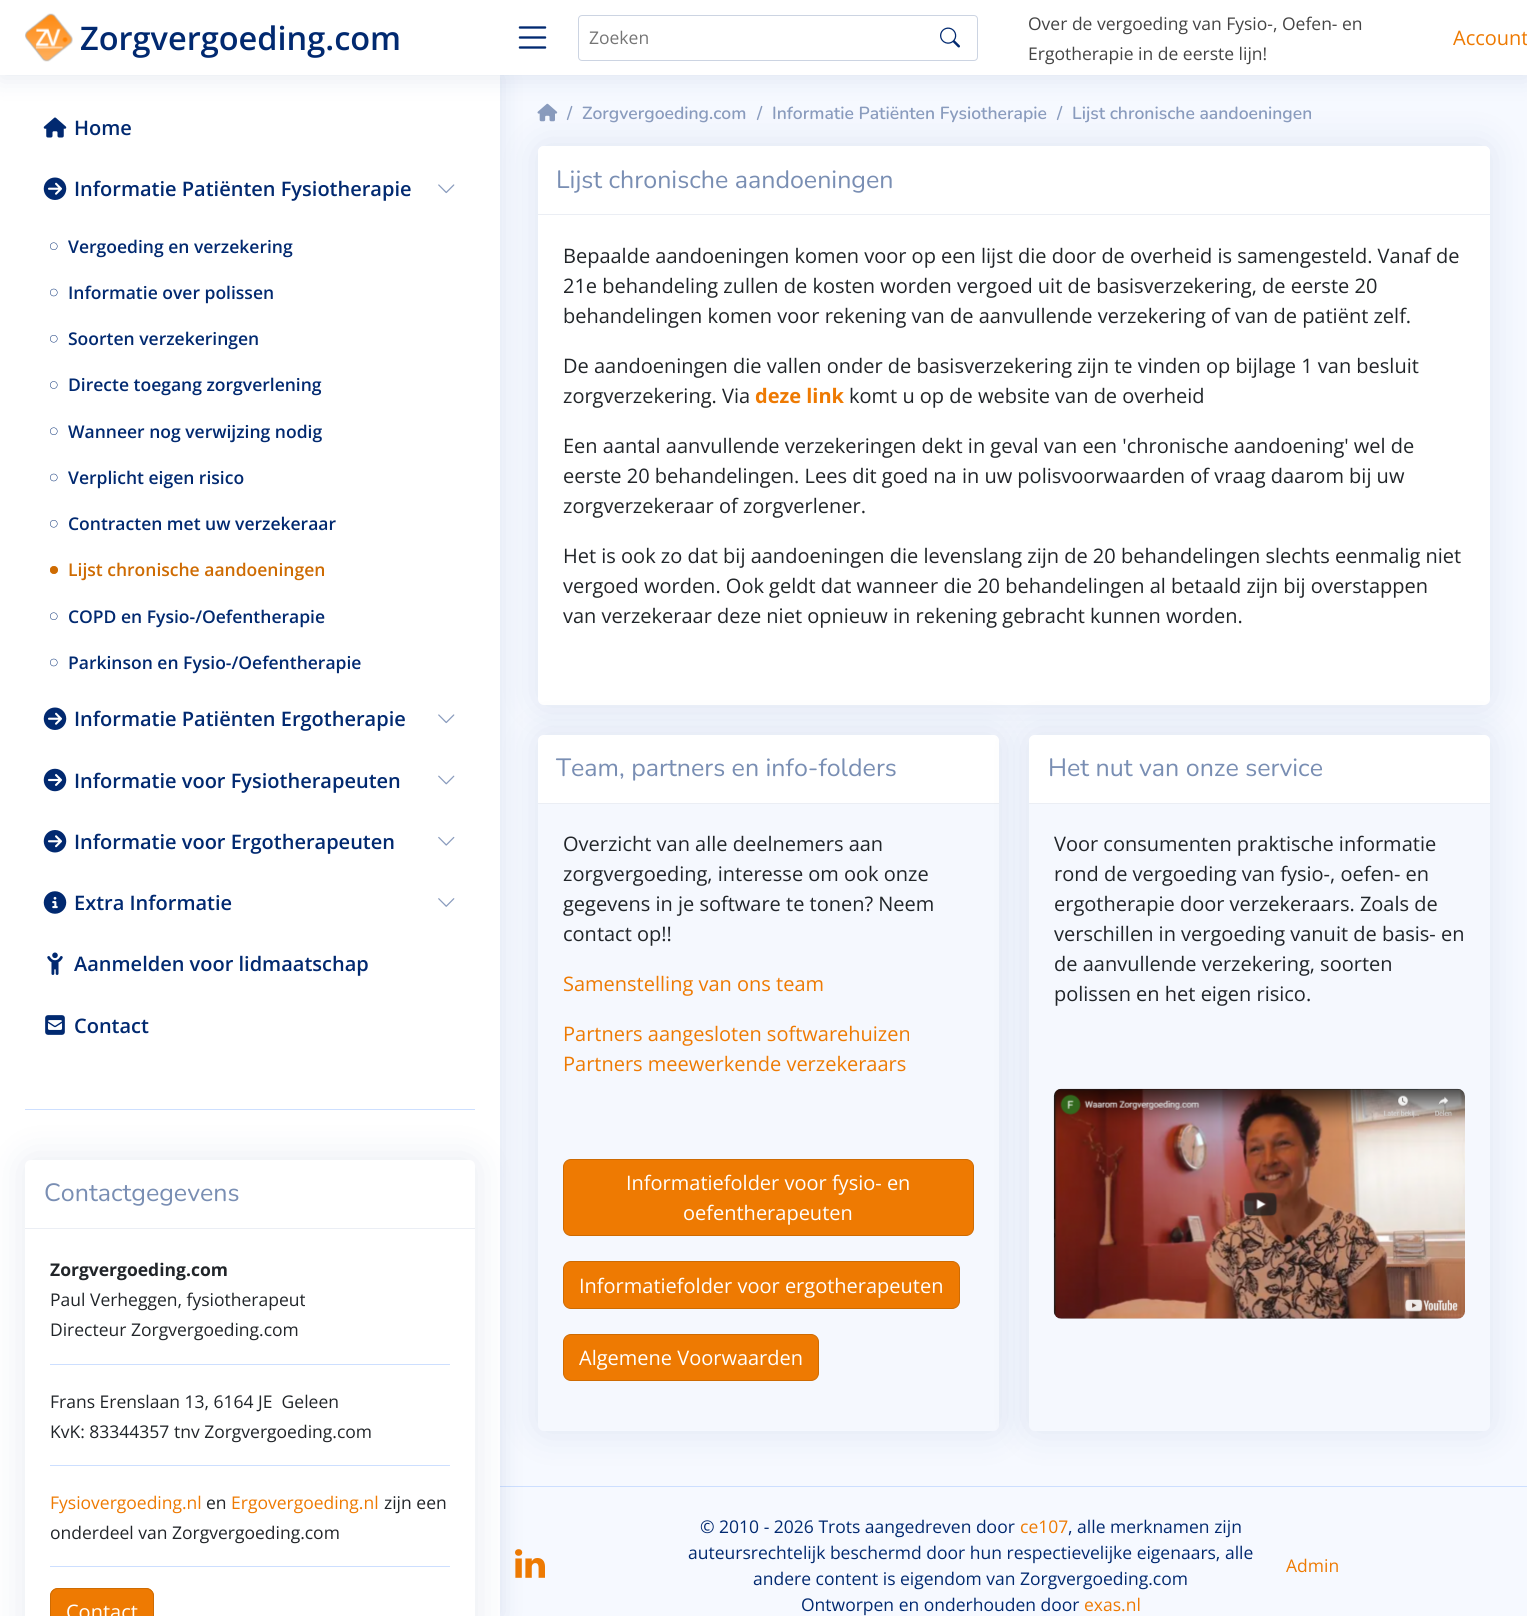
import math
import cairo

surface = cairo.ImageSurface(cairo.FORMAT_RGB24, 1527, 1616)
cr = cairo.Context(surface)
options = cairo.FontOptions()
options.set_hint_metrics(cairo.HINT_METRICS_OFF)
options.set_hint_style(cairo.HINT_STYLE_NONE)
cr.set_font_options(options)
cr.set_miter_limit(4)


def rgb(code):
    cr.set_source_rgb(*(v / 255 for v in bytes.fromhex(code[-6:])))


def rrect(x, y, w, h, r):
    cr.new_sub_path()
    for i, (u, v) in enumerate([(x + w - r, y + h - r), (x + r, y + h - r), (x + r, y + r), (x + w - r, y + r)]):
        cr.arc(u, v, r, i * math.pi / 2, (i + 1) * math.pi / 2)
    cr.close_path()


def soft_shadow(x, y, w, h, r, blur, alpha):
    cr.push_group_with_content(cairo.CONTENT_ALPHA)
    cr.set_operator(cairo.OPERATOR_SOURCE)
    for i in range(15, -16, -2):
        e = blur * i / 6
        if min(w, h) + 2 * e > 0:
            cr.set_source_rgba(0, 0, 0, alpha * math.erfc((i - 1) / 8.5) / 2)
            rrect(x - e, y - e, w + 2 * e, h + 2 * e, max(0, min(r + e + blur * .6, min(w, h) / 2 + e)))
            cr.fill()
    cr.mask(cr.pop_group())


def image(path, x, y, w, h):
    cr.save()
    cr.set_source_surface(cairo.ImageSurface.create_from_png(path), x, y)
    cr.rectangle(x, y, w, h)
    cr.fill()
    cr.restore()


rgb("#f6f9ff")
cr.paint()
image("img/20.png", 537, 103, 21, 19)
rgb("#012970")
soft_shadow(538, 146, 952, 559, 6, 19, 0.1)
rgb("#ffffff")
rrect(538, 146, 952, 559, 6)
cr.fill()
cr.new_path()
cr.move_to(544, 146)
cr.line_to(1484, 146)
cr.curve_to(1487.5, 146, 1490, 148.5, 1490, 152)
cr.line_to(1490, 215)
cr.line_to(538, 215)
cr.line_to(538, 152)
cr.curve_to(538, 148.5, 540.5, 146, 544, 146)
cr.close_path()
cr.fill()
rgb("#ebeef4")
cr.rectangle(538, 214, 952, 1)
cr.fill()
rgb("#cddfff")
cr.rectangle(500, 1486, 1027, 1)
cr.fill()
rgb("#012970")
soft_shadow(538, 735, 461, 696, 6, 19, 0.1)
rgb("#f5f8fe")
rrect(538, 735, 461, 696, 6)
cr.fill()
rgb("#ffffff")
cr.new_path()
cr.move_to(544, 735)
cr.line_to(993, 735)
cr.curve_to(996.5, 735, 999, 737.5, 999, 741)
cr.line_to(999, 804)
cr.line_to(538, 804)
cr.line_to(538, 741)
cr.curve_to(538, 737.5, 540.5, 735, 544, 735)
cr.close_path()
cr.fill()
rgb("#ebeef4")
cr.rectangle(538, 803, 461, 1)
cr.fill()
image("img/22.png", 515, 1549, 30, 29)
rgb("#012970")
soft_shadow(0, 75, 500, 1541, 0, 12.5, 0.1)
rgb("#ffffff")
cr.rectangle(0, 75, 500, 1541)
cr.fill()
rgb("#012970")
soft_shadow(0, 3, 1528, 75, 0, 12.5, 0.1)
rgb("#ffffff")
cr.rectangle(0, 0, 1527, 75)
cr.fill()
image("img/1.png", 25, 13, 48, 49)
image("img/2.png", 518, 26, 29, 23)
rrect(578.5, 15.5, 399, 45, 3.5)
rgb("#ccd4e2")
cr.set_line_width(1)
cr.stroke()
image("img/3.png", 940, 27, 20, 21)
image("img/4.png", 43, 117, 24, 21)
image("img/5.png", 43, 177, 24, 23)
image("img/6.png", 438, 184, 17, 10)
image("img/7.png", 50, 242, 8, 8)
image("img/8.png", 50, 288, 8, 9)
image("img/9.png", 50, 335, 8, 8)
image("img/10.png", 50, 381, 8, 8)
image("img/7.png", 50, 427, 8, 8)
image("img/8.png", 50, 473, 8, 9)
image("img/9.png", 50, 520, 8, 8)
rgb("#ce6b02")
cr.arc(54, 570, 4, 0, 2 * math.pi)
cr.fill()
image("img/11.png", 50, 566, 8, 8)
image("img/7.png", 50, 612, 8, 8)
image("img/8.png", 50, 658, 8, 9)
image("img/5.png", 43, 707, 24, 23)
image("img/6.png", 438, 714, 17, 10)
image("img/12.png", 43, 768, 24, 24)
image("img/13.png", 438, 775, 17, 10)
image("img/14.png", 43, 830, 24, 23)
image("img/15.png", 438, 836, 17, 10)
image("img/16.png", 43, 891, 24, 23)
image("img/17.png", 438, 898, 17, 9)
image("img/18.png", 47, 952, 16, 23)
image("img/19.png", 45, 1015, 20, 20)
rgb("#cddfff")
cr.rectangle(25, 1109, 450, 1)
cr.fill()
rgb("#012970")
soft_shadow(25, 1160, 450, 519, 6, 19, 0.1)
rgb("#ffffff")
cr.new_path()
cr.move_to(31, 1160)
cr.line_to(469, 1160)
cr.curve_to(472.5, 1160, 475, 1162.5, 475, 1166)
cr.line_to(475, 1616)
cr.line_to(25, 1616)
cr.line_to(25, 1166)
cr.curve_to(25, 1162.5, 27.5, 1160, 31, 1160)
cr.close_path()
cr.fill()
for x, y, w, h, color in [
    (25, 1228, 450, 1, "#ebeef4"),
    (50, 1364, 400, 1, "#cddfff"),
    (50, 1465, 400, 1, "#cddfff"),
    (50, 1566, 400, 1, "#cddfff"),
]:
    rgb(color)
    cr.rectangle(x, y, w, h)
    cr.fill()
rgb("#ee7a02")
cr.new_path()
cr.move_to(58, 1588)
cr.line_to(146, 1588)
cr.curve_to(150.5, 1588, 154, 1591.5, 154, 1596)
cr.line_to(154, 1616)
cr.line_to(50, 1616)
cr.line_to(50, 1596)
cr.curve_to(50, 1591.5, 53.5, 1588, 58, 1588)
cr.close_path()
cr.fill()
rrect(50.5, 1588.5, 103, 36, 7.5)
rgb("#ce6b02")
cr.stroke()
rgb("#ee7a02")
rrect(563.5, 1159.5, 410, 76, 7.5)
cr.fill_preserve()
rgb("#ce6b02")
cr.stroke()
rgb("#ee7a02")
rrect(563.5, 1261.5, 396, 47, 7.5)
cr.fill_preserve()
rgb("#ce6b02")
cr.stroke()
rgb("#ee7a02")
rrect(563.5, 1334.5, 255, 46, 7.5)
cr.fill_preserve()
rgb("#ce6b02")
cr.stroke()
rgb("#012970")
soft_shadow(1029, 735, 461, 696, 6, 19, 0.1)
rgb("#f5f8fe")
rrect(1029, 735, 461, 696, 6)
cr.fill()
rgb("#ffffff")
cr.new_path()
cr.move_to(1035, 735)
cr.line_to(1484, 735)
cr.curve_to(1487.5, 735, 1490, 737.5, 1490, 741)
cr.line_to(1490, 804)
cr.line_to(1029, 804)
cr.line_to(1029, 741)
cr.curve_to(1029, 737.5, 1031.5, 735, 1035, 735)
cr.close_path()
cr.fill()
rgb("#ebeef4")
cr.rectangle(1029, 803, 461, 1)
cr.fill()
image("img/21.png", 1053, 1088, 412, 231)
cr.select_font_face("Open Sans SemiBold")
cr.set_font_size(32.5)
rgb("#012970")
cr.move_to(80, 50)
cr.show_text("Zorgvergoeding.com")
cr.select_font_face("Open Sans")
cr.set_font_size(17.5)
rgb("#757575")
cr.move_to(589, 44)
cr.show_text("Zoeken")
rgb("#444444")
cr.move_to(1028, 30)
cr.show_text("Over de vergoeding van Fysio-, Oefen- en")
cr.move_to(1028, 60)
cr.show_text("Ergotherapie in de eerste lijn!")
cr.set_font_size(20)
rgb("#ee7a02")
cr.move_to(1453, 45)
cr.show_text("Account")
cr.select_font_face("Open Sans SemiBold")
rgb("#012970")
cr.move_to(74, 135)
cr.show_text("Home")
cr.move_to(74, 196)
cr.show_text("Informatie Patiënten Fysiotherapie")
cr.set_font_size(17.5)
for x, y, s in [
    (68, 253, "Vergoeding en verzekering"),
    (68, 299, "Informatie over polissen"),
    (68, 345, "Soorten verzekeringen"),
    (68, 391, "Directe toegang zorgverlening"),
    (68, 438, "Wanneer nog verwijzing nodig"),
    (68, 484, "Verplicht eigen risico"),
    (68, 530, "Contracten met uw verzekeraar"),
]:
    cr.move_to(x, y)
    cr.show_text(s)
rgb("#ce6b02")
cr.move_to(68, 576)
cr.show_text("Lijst chronische aandoeningen")
rgb("#012970")
cr.move_to(68, 623)
cr.show_text("COPD en Fysio-/Oefentherapie")
cr.move_to(68, 669)
cr.show_text("Parkinson en Fysio-/Oefentherapie")
cr.set_font_size(20)
for x, y, s in [
    (74, 726, "Informatie Patiënten Ergotherapie"),
    (74, 788, "Informatie voor Fysiotherapeuten"),
    (74, 849, "Informatie voor Ergotherapeuten"),
    (74, 910, "Extra Informatie"),
    (74, 971, "Aanmelden voor lidmaatschap"),
    (74, 1033, "Contact"),
]:
    cr.move_to(x, y)
    cr.show_text(s)
cr.select_font_face("Nunito")
cr.set_font_size(25)
rgb("#798eb3")
cr.move_to(44, 1201)
cr.show_text("Contactgegevens")
cr.select_font_face("Open Sans", cairo.FONT_SLANT_NORMAL, cairo.FONT_WEIGHT_BOLD)
cr.set_font_size(17.5)
rgb("#212529")
cr.move_to(50, 1276)
cr.show_text("Zorgvergoeding.com")
cr.select_font_face("Open Sans")
for x, y, s in [
    (50, 1306, "Paul Verheggen, fysiotherapeut"),
    (50, 1336, "Directeur Zorgvergoeding.com"),
    (50, 1408, "Frans Erenslaan 13, 6164 JE  Geleen"),
    (50, 1438, "KvK: 83344357 tnv Zorgvergoeding.com"),
]:
    cr.move_to(x, y)
    cr.show_text(s)
rgb("#ee7a02")
cr.move_to(50, 1509)
cr.show_text("Fysiovergoeding.nl")
rgb("#212529")
cr.move_to(206, 1509)
cr.show_text("en")
rgb("#ee7a02")
cr.move_to(231, 1509)
cr.show_text("Ergovergoeding.nl")
rgb("#212529")
cr.move_to(384, 1509)
cr.show_text("zijn een")
cr.move_to(50, 1539)
cr.show_text("onderdeel van Zorgvergoeding.com")
cr.set_font_size(20)
rgb("#ffffff")
cr.move_to(66, 1619)
cr.show_text("Contact")
cr.select_font_face("Nunito SemiBold")
cr.set_font_size(17.5)
rgb("#899bbd")
for x, y, s in [
    (567, 119, "/"),
    (582, 119, "Zorgvergoeding.com"),
    (757, 119, "/"),
    (772, 119, "Informatie Patiënten Fysiotherapie"),
    (1057, 119, "/"),
    (1072, 119, "Lijst chronische aandoeningen"),
]:
    cr.move_to(x, y)
    cr.show_text(s)
cr.select_font_face("Nunito")
cr.set_font_size(25)
rgb("#798eb3")
cr.move_to(556, 188)
cr.show_text("Lijst chronische aandoeningen")
cr.select_font_face("Open Sans")
cr.set_font_size(20)
rgb("#212529")
for x, y, s in [
    (563, 263, "Bepaalde aandoeningen komen voor op een lijst die door de overheid is samengesteld. Vanaf de"),
    (563, 293, "21e behandeling zullen de kosten worden vergoed uit de basisverzekering, de eerste 20"),
    (563, 323, "behandelingen komen voor rekening van de aanvullende verzekering of van de patiënt zelf."),
    (563, 373, "De aandoeningen die vallen onder de basisverzekering zijn te vinden op bijlage 1 van besluit"),
    (563, 403, "zorgverzekering. Via"),
]:
    cr.move_to(x, y)
    cr.show_text(s)
cr.select_font_face("Open Sans", cairo.FONT_SLANT_NORMAL, cairo.FONT_WEIGHT_BOLD)
rgb("#ee7a02")
cr.move_to(755, 403)
cr.show_text("deze link")
cr.select_font_face("Open Sans")
rgb("#212529")
for x, y, s in [
    (849, 403, "komt u op de website van de overheid"),
    (563, 453, "Een aantal aanvullende verzekeringen dekt in geval van een 'chronische aandoening' wel de"),
    (563, 483, "eerste 20 behandelingen. Lees dit goed na in uw polisvoorwaarden of vraag daarom bij uw"),
    (563, 513, "zorgverzekeraar of zorgverlener."),
    (563, 563, "Het is ook zo dat bij aandoeningen die levenslang zijn de 20 behandelingen slechts eenmalig niet"),
    (563, 593, "vergoed worden. Ook geldt dat wanneer die 20 behandelingen al betaald zijn bij overstappen"),
    (563, 623, "van verzekeraar deze niet opnieuw in rekening gebracht kunnen worden."),
]:
    cr.move_to(x, y)
    cr.show_text(s)
cr.select_font_face("Nunito")
cr.set_font_size(25)
rgb("#798eb3")
cr.move_to(556, 776)
cr.show_text("Team, partners en info-folders")
cr.select_font_face("Open Sans")
cr.set_font_size(20)
rgb("#212529")
for x, y, s in [
    (563, 851, "Overzicht van alle deelnemers aan"),
    (563, 881, "zorgvergoeding, interesse om ook onze"),
    (563, 911, "gegevens in je software te tonen? Neem"),
    (563, 941, "contact op!!"),
]:
    cr.move_to(x, y)
    cr.show_text(s)
rgb("#ee7a02")
for x, y, s in [
    (563, 991, "Samenstelling van ons team"),
    (563, 1041, "Partners aangesloten softwarehuizen"),
    (563, 1071, "Partners meewerkende verzekeraars"),
]:
    cr.move_to(x, y)
    cr.show_text(s)
rgb("#ffffff")
for x, y, s in [
    (626, 1190, "Informatiefolder voor fysio- en"),
    (683, 1220, "oefentherapeuten"),
    (579, 1293, "Informatiefolder voor ergotherapeuten"),
    (579, 1365, "Algemene Voorwaarden"),
]:
    cr.move_to(x, y)
    cr.show_text(s)
cr.select_font_face("Nunito")
cr.set_font_size(25)
rgb("#798eb3")
cr.move_to(1048, 776)
cr.show_text("Het nut van onze service")
cr.select_font_face("Open Sans")
cr.set_font_size(20)
rgb("#212529")
for x, y, s in [
    (1054, 851, "Voor consumenten praktische informatie"),
    (1054, 881, "rond de vergoeding van fysio-, oefen- en"),
    (1054, 911, "ergotherapie door verzekeraars. Zoals de"),
    (1054, 941, "verschillen in vergoeding vanuit de basis- en"),
    (1054, 971, "de aanvullende verzekering, soorten"),
    (1054, 1001, "polissen en het eigen risico."),
]:
    cr.move_to(x, y)
    cr.show_text(s)
cr.set_font_size(17.5)
rgb("#012970")
cr.move_to(700, 1533)
cr.show_text("© 2010 - 2026 Trots aangedreven door")
rgb("#ee7a02")
cr.move_to(1020, 1533)
cr.show_text("ce107")
rgb("#012970")
for x, y, s in [
    (1068, 1533, ", alle merknamen zijn"),
    (688, 1559, "auteursrechtelijk beschermd door hun respectievelijke eigenaars, alle"),
    (753, 1585, "andere content is eigendom van Zorgvergoeding.com"),
    (801, 1611, "Ontworpen en onderhouden door"),
]:
    cr.move_to(x, y)
    cr.show_text(s)
rgb("#ee7a02")
cr.move_to(1084, 1611)
cr.show_text("exas.nl")
cr.move_to(1286, 1572)
cr.show_text("Admin")
surface.write_to_png("page.png")
